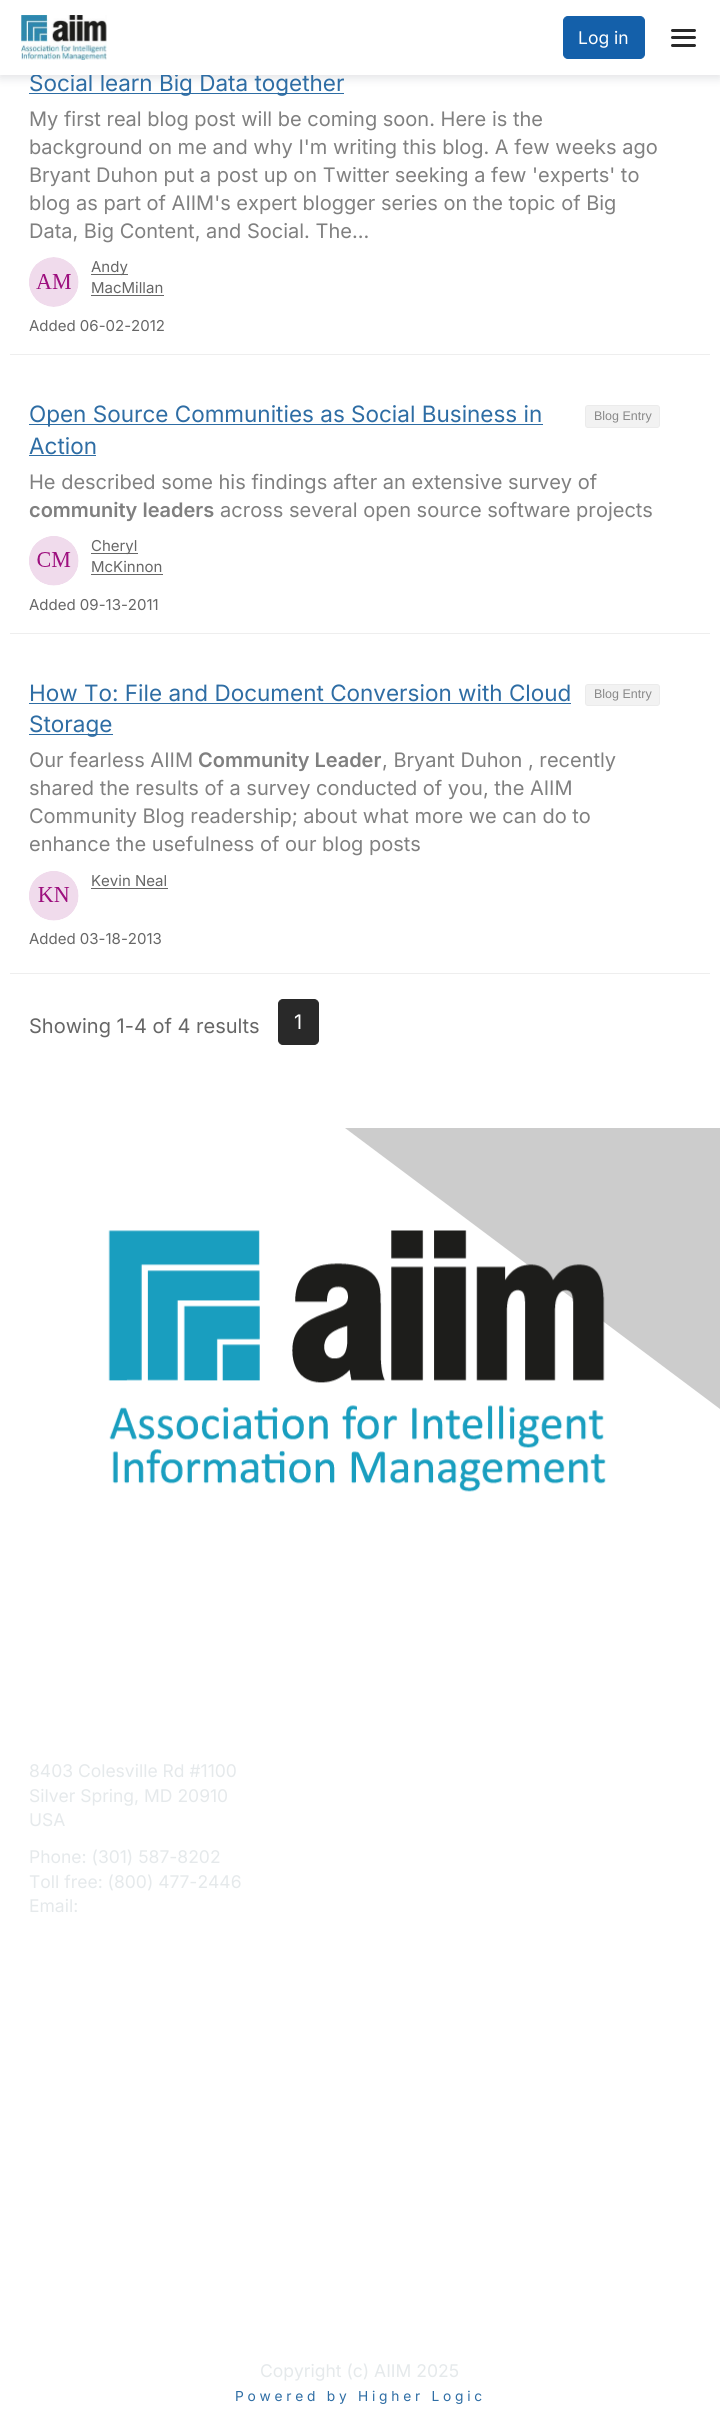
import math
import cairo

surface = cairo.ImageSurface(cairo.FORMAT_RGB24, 720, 2426)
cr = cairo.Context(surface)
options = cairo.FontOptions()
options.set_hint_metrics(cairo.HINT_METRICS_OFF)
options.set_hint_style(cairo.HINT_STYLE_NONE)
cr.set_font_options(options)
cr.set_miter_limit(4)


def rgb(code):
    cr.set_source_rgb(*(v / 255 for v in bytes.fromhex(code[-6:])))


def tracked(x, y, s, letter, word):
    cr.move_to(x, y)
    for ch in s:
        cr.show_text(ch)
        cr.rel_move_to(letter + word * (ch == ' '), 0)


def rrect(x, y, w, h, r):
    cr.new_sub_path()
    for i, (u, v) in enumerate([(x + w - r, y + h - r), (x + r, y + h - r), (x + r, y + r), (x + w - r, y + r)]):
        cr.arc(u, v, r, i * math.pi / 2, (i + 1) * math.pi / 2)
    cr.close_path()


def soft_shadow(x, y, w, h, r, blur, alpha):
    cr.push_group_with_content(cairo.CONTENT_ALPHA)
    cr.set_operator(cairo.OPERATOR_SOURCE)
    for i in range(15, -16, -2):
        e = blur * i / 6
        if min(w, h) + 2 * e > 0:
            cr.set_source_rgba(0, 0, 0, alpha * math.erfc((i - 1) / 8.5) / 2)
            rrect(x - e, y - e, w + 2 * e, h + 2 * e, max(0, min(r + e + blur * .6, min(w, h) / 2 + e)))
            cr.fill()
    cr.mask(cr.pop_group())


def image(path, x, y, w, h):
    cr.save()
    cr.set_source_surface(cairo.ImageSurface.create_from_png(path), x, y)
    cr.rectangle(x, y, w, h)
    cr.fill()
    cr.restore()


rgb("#ffffff")
cr.paint()
rgb("#2e6da4")
cr.rectangle(29, 93, 315, 1)
cr.fill()
rgb("#838791")
soft_shadow(0, 3, 720, 75, 0, 5, 0.24)
image("img/2.png", 29, 257, 50, 50)
for x, y, w, h, color in [
    (91, 274, 37, 1, "#666666"),
    (91, 295, 73, 1, "#666666"),
    (10, 354, 700, 1, "#eeeeee"),
    (29, 424, 514, 1, "#2e6da4"),
]:
    rgb(color)
    cr.rectangle(x, y, w, h)
    cr.fill()
rgb("#f2f2f2")
rrect(585.5, 405.5, 74, 22, 2.5)
cr.fill_preserve()
rgb("#ebebeb")
cr.set_line_width(1)
cr.stroke()
rgb("#2e6da4")
cr.rectangle(29, 455, 67, 1)
cr.fill()
image("img/3.png", 29, 536, 50, 50)
for x, y, w, h, color in [
    (91, 553, 47, 1, "#666666"),
    (91, 574, 72, 1, "#666666"),
    (10, 633, 700, 1, "#eeeeee"),
    (29, 703, 542, 1, "#2e6da4"),
]:
    rgb(color)
    cr.rectangle(x, y, w, h)
    cr.fill()
rgb("#f2f2f2")
rrect(585.5, 684.5, 74, 21, 2.5)
cr.fill_preserve()
rgb("#ebebeb")
cr.stroke()
rgb("#2e6da4")
cr.rectangle(29, 734, 84, 1)
cr.fill()
image("img/4.png", 29, 871, 50, 50)
rgb("#666666")
cr.rectangle(91, 888, 77, 1)
cr.fill()
rgb("#eeeeee")
cr.rectangle(10, 973, 700, 1)
cr.fill()
rgb("#292929")
rrect(278.5, 999.5, 40, 45, 4.5)
cr.fill_preserve()
cr.stroke()
rgb("#cccccc")
cr.new_path()
cr.move_to(720, 1128)
cr.line_to(720, 1409)
cr.line_to(345, 1128)
cr.close_path()
cr.fill()
image("img/5.png", 108, 1230, 498, 262)
cr.select_font_face("Inter")
cr.set_font_size(22.5)
rgb("#2e6da4")
cr.move_to(29, 91)
cr.show_text("Social learn Big Data together")
rgb("#ffffff")
cr.rectangle(0, 0, 720, 75)
cr.fill()
rgb("#292929")
rrect(671, 44, 25, 3, 1.5)
cr.fill()
rrect(671, 36, 25, 3, 1.5)
cr.fill()
rrect(671, 29, 25, 3, 1.5)
cr.fill()
image("img/1.png", 21, 15, 86, 45)
rgb("#1460aa")
rrect(563.5, 16.5, 81, 42, 4.5)
cr.fill_preserve()
cr.stroke()
cr.set_font_size(17.5)
rgb("#ffffff")
cr.move_to(578, 44)
cr.show_text("Log in")
cr.set_font_size(20)
rgb("#808080")
for x, y, s in [
    (29, 126, "My first real blog post will be coming soon. Here is the"),
    (29, 154, "background on me and why I'm writing this blog. A few weeks ago"),
    (29, 182, "Bryant Duhon put a post up on Twitter seeking a few 'experts' to"),
    (29, 210, "blog as part of AIIM's expert blogger series on the topic of Big"),
    (29, 238, "Data, Big Content, and Social. The..."),
]:
    cr.move_to(x, y)
    cr.show_text(s)
cr.set_font_size(15)
rgb("#666666")
for x, y, s in [
    (91, 272, "Andy"),
    (91, 293, "MacMillan"),
    (29, 331, "Added 06-02-2012"),
]:
    cr.move_to(x, y)
    cr.show_text(s)
cr.set_font_size(22.5)
rgb("#2e6da4")
cr.move_to(29, 422)
cr.show_text("Open Source Communities as Social Business in")
cr.select_font_face("Liberation Sans")
cr.set_font_size(12.5)
rgb("#888888")
cr.move_to(594, 420)
cr.show_text("Blog Entry")
cr.select_font_face("Inter")
cr.set_font_size(22.5)
rgb("#2e6da4")
cr.move_to(29, 454)
cr.show_text("Action")
cr.set_font_size(20)
rgb("#808080")
cr.move_to(29, 489)
cr.show_text("He described some his findings after an extensive survey of")
cr.select_font_face("Inter SemiBold")
cr.move_to(29, 517)
cr.show_text("community leaders")
cr.select_font_face("Inter")
cr.move_to(220, 517)
cr.show_text("across several open source software projects")
cr.set_font_size(15)
rgb("#666666")
for x, y, s in [
    (91, 551, "Cheryl"),
    (91, 572, "McKinnon"),
    (29, 610, "Added 09-13-2011"),
]:
    cr.move_to(x, y)
    cr.show_text(s)
cr.set_font_size(22.5)
rgb("#2e6da4")
cr.move_to(29, 701)
cr.show_text("How To: File and Document Conversion with Cloud")
cr.select_font_face("Liberation Sans")
cr.set_font_size(12.5)
rgb("#888888")
cr.move_to(594, 698)
cr.show_text("Blog Entry")
cr.select_font_face("Inter")
cr.set_font_size(22.5)
rgb("#2e6da4")
cr.move_to(29, 732)
cr.show_text("Storage")
cr.set_font_size(20)
rgb("#808080")
cr.move_to(29, 767)
cr.show_text("Our fearless AIIM")
cr.select_font_face("Inter SemiBold")
cr.move_to(198, 767)
cr.show_text("Community Leader")
cr.select_font_face("Inter")
for x, y, s in [
    (382, 767, ", Bryant Duhon , recently"),
    (29, 795, "shared the results of a survey conducted of you, the AIIM"),
    (29, 823, "Community Blog readership; about what more we can do to"),
    (29, 851, "enhance the usefulness of our blog posts"),
]:
    cr.move_to(x, y)
    cr.show_text(s)
cr.set_font_size(15)
rgb("#666666")
cr.move_to(91, 886)
cr.show_text("Kevin Neal")
cr.move_to(29, 944)
cr.show_text("Added 03-18-2013")
cr.set_font_size(20)
cr.move_to(29, 1033)
cr.show_text("Showing 1-4 of 4 results")
rgb("#ffffff")
cr.move_to(294, 1029)
cr.show_text("1")
cr.set_font_size(17.5)
rgb("#e5e9eb")
for x, y, s in [
    (29, 1777, "8403 Colesville Rd #1100"),
    (29, 1802, "Silver Spring, MD 20910"),
    (29, 1826, "USA"),
    (29, 1863, "Phone: (301) 587-8202"),
    (29, 1888, "Toll free: (800) 477-2446"),
    (29, 1912, "Email:"),
    (260, 2377, "Copyright (c) AIIM 2025"),
]:
    cr.move_to(x, y)
    cr.show_text(s)
cr.set_font_size(13.75)
rgb("#2e6da4")
tracked(235, 2401, "Powered by Higher Logic", 3.75, 0)
surface.write_to_png("page.png")
